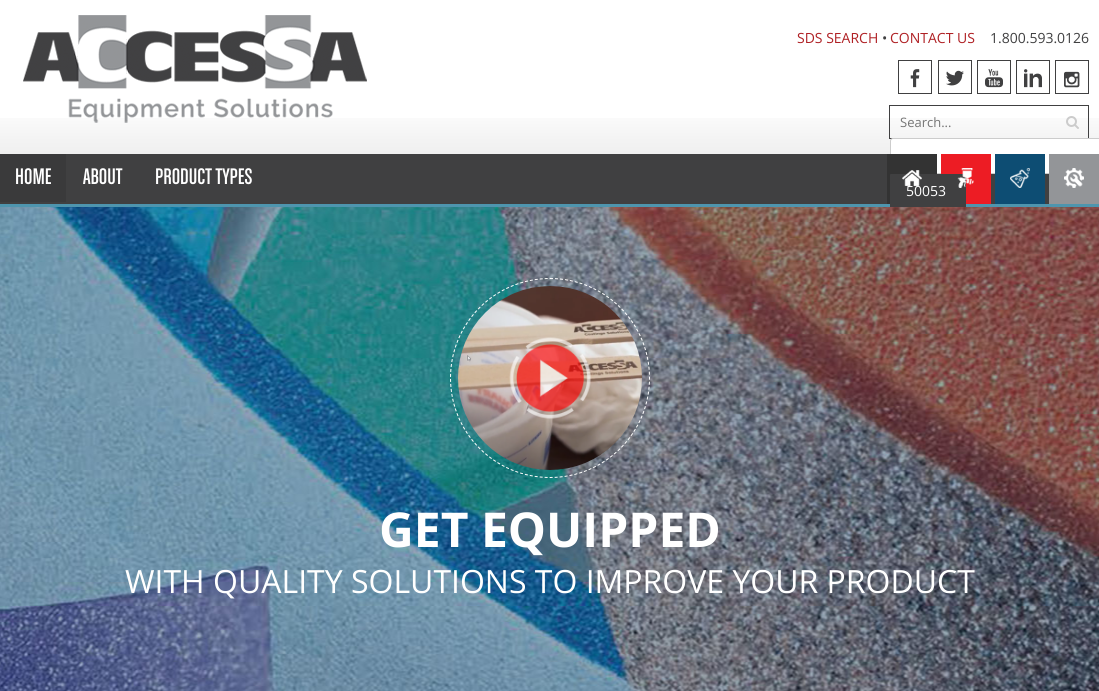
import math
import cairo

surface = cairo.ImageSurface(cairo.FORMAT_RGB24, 1099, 691)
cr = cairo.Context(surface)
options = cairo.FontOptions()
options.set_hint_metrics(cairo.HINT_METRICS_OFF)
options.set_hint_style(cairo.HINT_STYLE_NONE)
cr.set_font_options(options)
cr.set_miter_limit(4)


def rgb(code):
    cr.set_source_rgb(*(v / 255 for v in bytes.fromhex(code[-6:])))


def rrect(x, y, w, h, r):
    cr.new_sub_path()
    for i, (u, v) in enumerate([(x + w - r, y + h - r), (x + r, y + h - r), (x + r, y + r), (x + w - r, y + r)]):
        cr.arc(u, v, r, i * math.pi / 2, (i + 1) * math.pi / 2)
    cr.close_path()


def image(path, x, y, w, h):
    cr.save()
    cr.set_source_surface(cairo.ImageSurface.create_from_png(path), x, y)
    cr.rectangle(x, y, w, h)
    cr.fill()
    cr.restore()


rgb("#ffffff")
cr.paint()
for x, y, w, h, color in [
    (0, 154, 1049, 50, "#404041"),
    (0, 204, 1099, 3, "#4e95ae"),
    (0, 154, 66, 48, "#3a3a3b"),
]:
    rgb(color)
    cr.rectangle(x, y, w, h)
    cr.fill()
image("img/5.png", 0, 118, 1099, 36)
cr.rectangle(889.5, 105.5, 199, 33)
rgb("#404041")
cr.set_line_width(1)
cr.stroke()
rgb("#ffffff")
rrect(890.5, 138.5, 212, 35, 2.5)
cr.fill_preserve()
rgb("#cccccc")
cr.stroke()
rgb("#333333")
cr.rectangle(887, 154, 50, 50)
cr.fill()
rgb("#ed1c24")
cr.rectangle(941, 154, 50, 50)
cr.fill()
rgb("#404041")
rrect(890, 174, 76, 34, 1)
cr.fill()
image("img/2.png", 957, 168, 17, 20)
rgb("#0d4d73")
cr.rectangle(995, 154, 50, 50)
cr.fill()
image("img/3.png", 1010, 168, 20, 20)
rgb("#939598")
cr.rectangle(1049, 154, 50, 50)
cr.fill()
image("img/4.png", 1064, 168, 20, 20)
image("img/6.png", 23, 15, 344, 108)
cr.rectangle(898.5, 60.5, 33, 33)
rgb("#404041")
cr.stroke()
image("img/7.png", 910, 69, 10, 19)
cr.rectangle(938.5, 60.5, 33, 33)
cr.stroke()
image("img/8.png", 946, 70, 18, 16)
cr.rectangle(977.5, 60.5, 33, 33)
cr.stroke()
image("img/9.png", 985, 69, 18, 19)
cr.rectangle(1016.5, 60.5, 33, 33)
cr.stroke()
image("img/10.png", 1024, 69, 18, 19)
cr.rectangle(1055.5, 60.5, 33, 33)
cr.stroke()
image("img/11.png", 1064, 71, 16, 17)
image("img/12.png", 1066, 116, 13, 13)
image("img/13.png", 0, 207, 1099, 484)
cr.new_path()
cr.move_to(550, 278.5)
cr.curve_to(605, 278.5, 649.5, 323, 649.5, 378)
cr.curve_to(649.5, 433, 605, 477.5, 550, 477.5)
cr.curve_to(495, 477.5, 450.5, 433, 450.5, 378)
cr.curve_to(450.5, 323, 495, 278.5, 550, 278.5)
cr.close_path()
rgb("#ffffff")
cr.set_dash([3, 2])
cr.stroke()
image("img/14.png", 458, 286, 184, 184)
cr.select_font_face("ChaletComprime")
cr.set_font_size(24)
for x, y, s in [
    (15, 184, "HOME"),
    (83, 184, "ABOUT"),
    (155, 184, "PRODUCT TYPES"),
]:
    cr.move_to(x, y)
    cr.show_text(s)
cr.select_font_face("Open Sans")
cr.set_font_size(14)
rgb("#af2024")
cr.move_to(797, 43)
cr.show_text("SDS SEARCH")
rgb("#404041")
cr.move_to(882, 43)
cr.show_text("•")
rgb("#af2024")
cr.move_to(890, 43)
cr.show_text("CONTACT US")
rgb("#404041")
cr.move_to(990, 43)
cr.show_text("1.800.593.0126")
cr.set_font_size(13)
rgb("#757575")
cr.move_to(900, 127)
cr.show_text("Search...")
cr.set_font_size(14)
rgb("#ffffff")
cr.move_to(906, 196)
cr.show_text("50053")
image("img/1.png", 902, 170, 20, 16)
cr.select_font_face("Open Sans", cairo.FONT_SLANT_NORMAL, cairo.FONT_WEIGHT_BOLD)
cr.set_font_size(48)
cr.move_to(379, 547)
cr.show_text("GET EQUIPPED")
cr.select_font_face("Open Sans")
cr.set_font_size(32)
cr.move_to(125, 593)
cr.show_text("WITH QUALITY SOLUTIONS TO IMPROVE YOUR PRODUCT")
surface.write_to_png("page.png")
